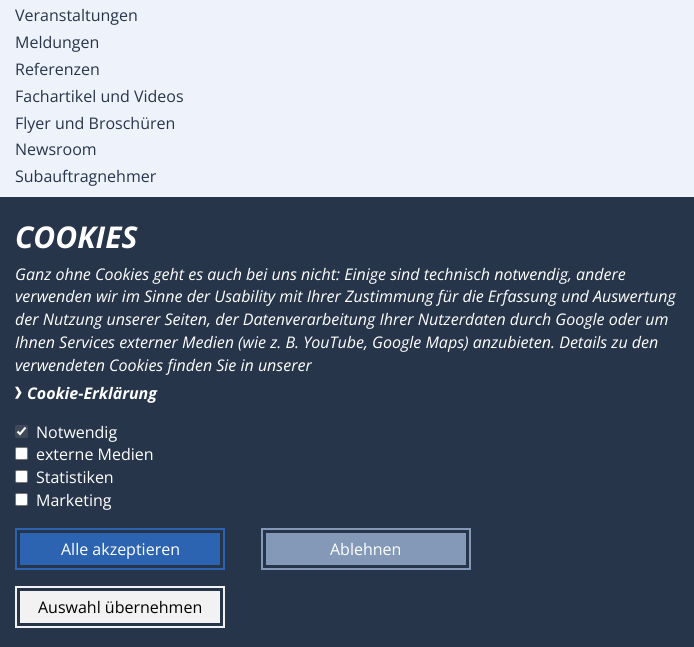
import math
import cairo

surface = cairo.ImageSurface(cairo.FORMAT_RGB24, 694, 647)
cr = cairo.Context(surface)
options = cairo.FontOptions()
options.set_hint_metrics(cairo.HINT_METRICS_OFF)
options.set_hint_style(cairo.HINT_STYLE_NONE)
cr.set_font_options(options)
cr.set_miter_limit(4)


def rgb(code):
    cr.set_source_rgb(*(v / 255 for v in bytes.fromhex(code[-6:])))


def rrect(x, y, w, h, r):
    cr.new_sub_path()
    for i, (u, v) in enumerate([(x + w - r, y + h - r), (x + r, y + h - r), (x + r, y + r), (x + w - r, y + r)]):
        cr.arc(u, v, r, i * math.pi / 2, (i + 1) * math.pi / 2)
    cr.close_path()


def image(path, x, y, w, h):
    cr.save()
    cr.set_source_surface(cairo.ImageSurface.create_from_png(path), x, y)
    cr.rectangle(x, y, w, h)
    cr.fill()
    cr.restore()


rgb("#eef2fa")
cr.paint()
rgb("#27354a")
cr.rectangle(0, 197, 694, 450)
cr.fill()
image("img/1.png", 15, 386, 7, 13)
rgb("#3f4957")
rrect(15, 425, 13, 13, 2)
cr.fill()
cr.new_path()
cr.move_to(17.5, 431.5)
cr.line_to(20, 434)
cr.line_to(25.5, 427.5)
rgb("#ffffff")
cr.set_line_width(2.1)
cr.stroke()
rrect(15.5, 447.5, 12, 12, 1.5)
cr.fill_preserve()
rgb("#767676")
cr.set_line_width(1)
cr.stroke()
rgb("#ffffff")
rrect(15.5, 470.5, 12, 12, 1.5)
cr.fill_preserve()
rgb("#767676")
cr.stroke()
rgb("#ffffff")
rrect(15.5, 493.5, 12, 12, 1.5)
cr.fill_preserve()
rgb("#767676")
cr.stroke()
cr.rectangle(16, 529, 208, 40)
rgb("#2c64b2")
cr.set_line_width(2)
cr.stroke()
cr.rectangle(20, 533, 200, 32)
cr.fill()
cr.rectangle(262, 529, 208, 40)
rgb("#8499b7")
cr.stroke()
cr.rectangle(266, 533, 200, 32)
cr.fill()
cr.rectangle(16, 587, 208, 40)
rgb("#f2f2f2")
cr.stroke()
cr.rectangle(20, 591, 200, 32)
cr.fill()
cr.select_font_face("Open Sans")
cr.set_font_size(16)
rgb("#27354a")
for x, y, s in [
    (15, 21, "Veranstaltungen"),
    (15, 48, "Meldungen"),
    (15, 75, "Referenzen"),
    (15, 102, "Fachartikel und Videos"),
    (15, 129, "Flyer und Broschüren"),
    (15, 155, "Newsroom"),
    (15, 182, "Subauftragnehmer"),
]:
    cr.move_to(x, y)
    cr.show_text(s)
cr.select_font_face("Open Sans", cairo.FONT_SLANT_ITALIC, cairo.FONT_WEIGHT_BOLD)
cr.set_font_size(30)
rgb("#ffffff")
cr.move_to(15, 248)
cr.show_text("COOKIES")
cr.select_font_face("Open Sans", cairo.FONT_SLANT_ITALIC)
cr.set_font_size(16)
for x, y, s in [
    (15, 280, "Ganz ohne Cookies geht es auch bei uns nicht: Einige sind technisch notwendig, andere"),
    (15, 302, "verwenden wir im Sinne der Usability mit Ihrer Zustimmung für die Erfassung und Auswertung"),
    (15, 325, "der Nutzung unserer Seiten, der Datenverarbeitung Ihrer Nutzerdaten durch Google oder um"),
    (15, 348, "Ihnen Services externer Medien (wie z. B. YouTube, Google Maps) anzubieten. Details zu den"),
    (15, 371, "verwendeten Cookies finden Sie in unserer"),
]:
    cr.move_to(x, y)
    cr.show_text(s)
cr.select_font_face("Open Sans", cairo.FONT_SLANT_ITALIC, cairo.FONT_WEIGHT_BOLD)
cr.move_to(27, 399)
cr.show_text("Cookie-Erklärung")
cr.select_font_face("Open Sans")
for x, y, s in [
    (36, 438, "Notwendig"),
    (36, 460, "externe Medien"),
    (36, 483, "Statistiken"),
    (36, 506, "Marketing"),
    (61, 555, "Alle akzeptieren"),
    (330, 555, "Ablehnen"),
]:
    cr.move_to(x, y)
    cr.show_text(s)
rgb("#000000")
cr.move_to(38, 613)
cr.show_text("Auswahl übernehmen")
surface.write_to_png("page.png")
